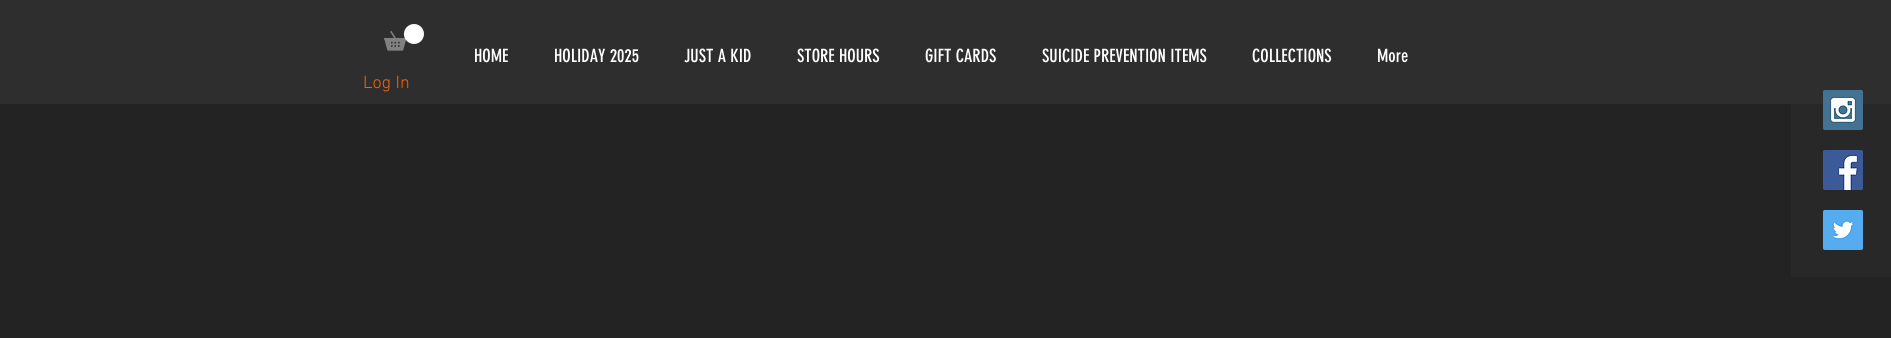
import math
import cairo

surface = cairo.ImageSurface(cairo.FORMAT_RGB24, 1891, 338)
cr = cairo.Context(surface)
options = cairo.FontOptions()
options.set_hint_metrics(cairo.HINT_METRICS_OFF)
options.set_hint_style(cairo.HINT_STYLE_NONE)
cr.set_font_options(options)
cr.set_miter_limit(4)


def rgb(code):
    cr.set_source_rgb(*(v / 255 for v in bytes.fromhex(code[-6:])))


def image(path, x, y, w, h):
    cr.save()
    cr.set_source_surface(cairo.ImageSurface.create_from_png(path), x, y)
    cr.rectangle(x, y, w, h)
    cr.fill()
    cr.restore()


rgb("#242323")
cr.paint()
rgb("#2f2e2e")
cr.rectangle(0, 0, 1891, 104)
cr.fill()
image("img/1.png", 384, 24, 40, 27)
rgb("#292828")
cr.rectangle(1791, 104, 100, 173)
cr.fill()
image("img/2.png", 1823, 90, 40, 40)
image("img/3.png", 1823, 150, 40, 40)
image("img/4.png", 1823, 210, 40, 40)
cr.select_font_face("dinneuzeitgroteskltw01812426")
cr.set_font_size(18)
rgb("#ffffff")
for x, y, s in [
    (474, 62, "HOME"),
    (554, 62, "HOLIDAY 2025"),
    (684, 62, "JUST A KID"),
    (797, 62, "STORE HOURS"),
    (925, 62, "GIFT CARDS"),
    (1042, 62, "SUICIDE PREVENTION ITEMS"),
    (1252, 62, "COLLECTIONS"),
    (1377, 62, "More"),
]:
    cr.move_to(x, y)
    cr.show_text(s)
cr.select_font_face("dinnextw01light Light")
rgb("#fc6000")
cr.move_to(363, 88)
cr.show_text("Log In")
surface.write_to_png("page.png")
